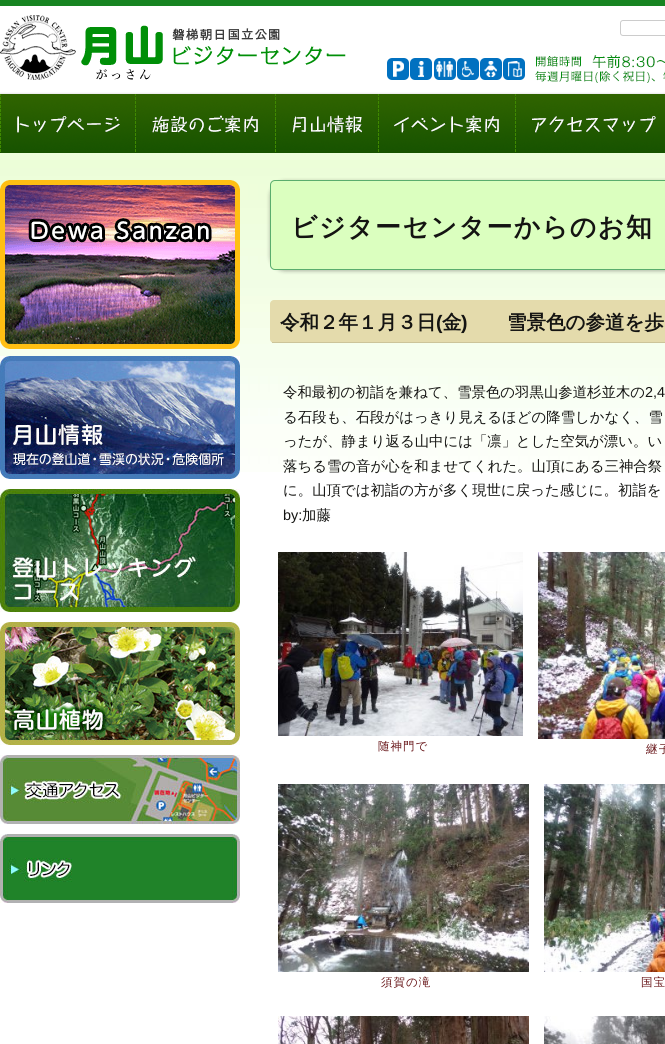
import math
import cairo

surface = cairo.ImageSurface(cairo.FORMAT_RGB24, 665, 1044)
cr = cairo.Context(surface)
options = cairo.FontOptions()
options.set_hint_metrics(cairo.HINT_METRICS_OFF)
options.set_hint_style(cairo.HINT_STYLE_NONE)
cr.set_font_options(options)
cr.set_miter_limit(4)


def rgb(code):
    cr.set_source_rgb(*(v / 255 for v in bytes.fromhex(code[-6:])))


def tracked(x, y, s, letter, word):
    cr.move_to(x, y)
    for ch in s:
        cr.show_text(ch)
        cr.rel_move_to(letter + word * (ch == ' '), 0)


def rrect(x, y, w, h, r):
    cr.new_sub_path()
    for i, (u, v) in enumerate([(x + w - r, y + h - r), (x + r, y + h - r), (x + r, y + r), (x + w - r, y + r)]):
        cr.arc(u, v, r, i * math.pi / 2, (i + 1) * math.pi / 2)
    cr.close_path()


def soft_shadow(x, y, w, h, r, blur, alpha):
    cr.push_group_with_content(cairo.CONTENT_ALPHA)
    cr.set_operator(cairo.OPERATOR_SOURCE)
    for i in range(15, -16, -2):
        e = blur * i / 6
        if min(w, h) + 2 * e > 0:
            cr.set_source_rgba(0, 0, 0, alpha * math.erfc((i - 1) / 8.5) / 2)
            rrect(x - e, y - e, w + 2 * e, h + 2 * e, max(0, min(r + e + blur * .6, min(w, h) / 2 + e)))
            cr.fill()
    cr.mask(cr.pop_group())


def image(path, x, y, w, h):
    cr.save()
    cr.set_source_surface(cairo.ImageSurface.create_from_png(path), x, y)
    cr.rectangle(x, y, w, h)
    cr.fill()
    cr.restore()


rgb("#ffffff")
cr.paint()
image("img/1.png", 0, 0, 665, 160)
image("img/2.png", 0, 15, 346, 65)
rrect(620.5, 20.5, 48, 15, 2.5)
rgb("#cccccc")
cr.set_line_width(1)
cr.stroke()
image("img/3.png", 387, 55, 278, 28)
image("img/4.png", 0, 94, 136, 59)
image("img/5.png", 136, 94, 140, 59)
image("img/6.png", 276, 94, 103, 59)
image("img/7.png", 379, 94, 137, 59)
image("img/8.png", 516, 94, 149, 59)
image("img/9.png", 0, 160, 665, 312)
image("img/10.png", 0, 180, 240, 169)
image("img/11.png", 0, 356, 240, 123)
image("img/12.png", 0, 489, 240, 123)
image("img/13.png", 0, 622, 240, 123)
image("img/14.png", 0, 755, 240, 69)
image("img/15.png", 0, 834, 240, 69)
rgb("#000000")
soft_shadow(270, 181, 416, 90, 15, 2, 0.3)
rgb("#dbffbf")
cr.new_path()
cr.move_to(275, 180.5)
cr.line_to(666, 180.5)
cr.curve_to(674, 180.5, 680.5, 187, 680.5, 195)
cr.line_to(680.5, 255)
cr.curve_to(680.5, 263, 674, 269.5, 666, 269.5)
cr.line_to(275, 269.5)
cr.curve_to(272.5, 269.5, 270.5, 267.5, 270.5, 265)
cr.line_to(270.5, 185)
cr.curve_to(270.5, 182.5, 272.5, 180.5, 275, 180.5)
cr.close_path()
cr.fill_preserve()
rgb("#5aad6d")
cr.stroke()
rgb("#e4dbac")
rrect(270, 300, 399, 43, 4)
cr.fill()
rgb("#ccc499")
cr.rectangle(272, 342, 393, 1)
cr.fill()
image("img/16.png", 278, 552, 245, 184)
image("img/17.png", 538, 552, 127, 187)
image("img/18.png", 278, 784, 251, 188)
image("img/19.png", 544, 784, 121, 188)
image("img/20.png", 278, 1016, 251, 28)
image("img/21.png", 544, 1016, 121, 28)
cr.select_font_face("WenQuanYi Zen Hei", cairo.FONT_SLANT_NORMAL, cairo.FONT_WEIGHT_BOLD)
cr.set_font_size(25.9)
rgb("#141412")
tracked(291, 236, "ビジターセンターからのお知", 1.5, 0)
cr.set_font_size(19.5)
cr.move_to(280, 329)
cr.show_text("令和２年１月３日")
cr.select_font_face("Liberation Sans", cairo.FONT_SLANT_NORMAL, cairo.FONT_WEIGHT_BOLD)
cr.move_to(436, 329)
cr.show_text("(")
cr.select_font_face("WenQuanYi Zen Hei", cairo.FONT_SLANT_NORMAL, cairo.FONT_WEIGHT_BOLD)
cr.move_to(442, 329)
cr.show_text("金")
cr.select_font_face("Liberation Sans", cairo.FONT_SLANT_NORMAL, cairo.FONT_WEIGHT_BOLD)
cr.move_to(461, 329)
cr.show_text(")")
cr.select_font_face("WenQuanYi Zen Hei", cairo.FONT_SLANT_NORMAL, cairo.FONT_WEIGHT_BOLD)
cr.move_to(507, 329)
cr.show_text("雪景色の参道を歩")
cr.select_font_face("WenQuanYi Zen Hei Medium")
cr.set_font_size(14.4)
cr.move_to(283, 397)
cr.show_text("令和最初の初詣を兼ねて、雪景色の羽黒山参道杉並木の")
cr.select_font_face("Liberation Sans")
cr.move_to(645, 397)
cr.show_text("2,4")
cr.select_font_face("WenQuanYi Zen Hei Medium")
for x, y, s in [
    (283, 422, "る石段も、石段がはっきり見えるほどの降雪しかなく、雪"),
    (283, 446, "ったが、静まり返る山中には「凛」とした空気が漂い。い"),
    (283, 471, "落ちる雪の音が心を和ませてくれた。山頂にある三神合祭"),
    (283, 495, "に。山頂では初詣の方が多く現世に戻った感じに。初詣を"),
]:
    cr.move_to(x, y)
    cr.show_text(s)
cr.select_font_face("Liberation Sans")
cr.move_to(283, 520)
cr.show_text("by:")
cr.select_font_face("WenQuanYi Zen Hei Medium")
cr.move_to(302, 520)
cr.show_text("加藤")
cr.set_font_size(11.5)
rgb("#681619")
for x, y, s in [
    (378, 750, "随神門で"),
    (646, 753, "継子"),
    (381, 986, "須賀の滝"),
    (641, 986, "国宝"),
]:
    tracked(x, y, s, 1, 0)
surface.write_to_png("page.png")
